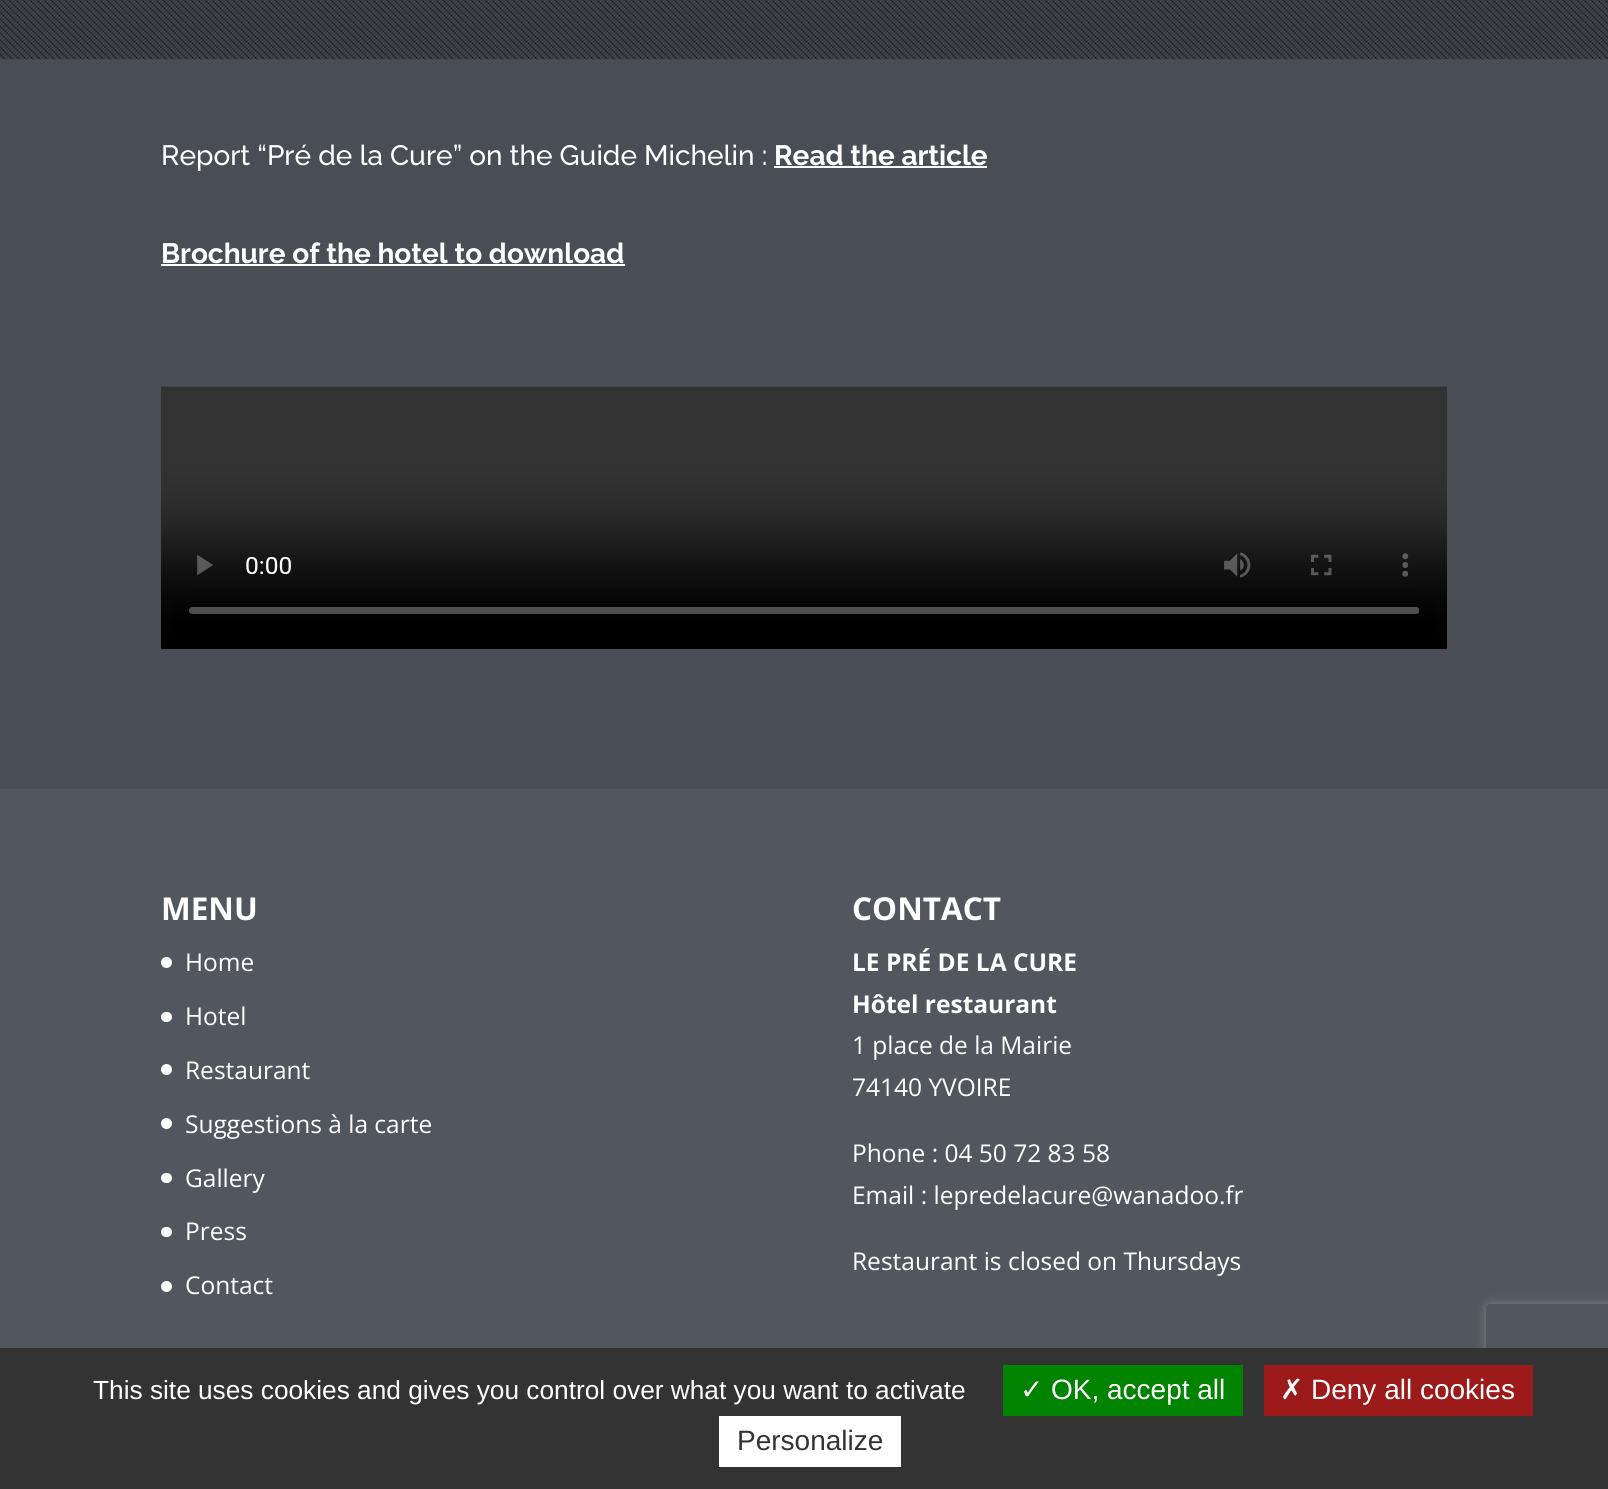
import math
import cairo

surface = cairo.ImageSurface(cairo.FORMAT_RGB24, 1608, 1489)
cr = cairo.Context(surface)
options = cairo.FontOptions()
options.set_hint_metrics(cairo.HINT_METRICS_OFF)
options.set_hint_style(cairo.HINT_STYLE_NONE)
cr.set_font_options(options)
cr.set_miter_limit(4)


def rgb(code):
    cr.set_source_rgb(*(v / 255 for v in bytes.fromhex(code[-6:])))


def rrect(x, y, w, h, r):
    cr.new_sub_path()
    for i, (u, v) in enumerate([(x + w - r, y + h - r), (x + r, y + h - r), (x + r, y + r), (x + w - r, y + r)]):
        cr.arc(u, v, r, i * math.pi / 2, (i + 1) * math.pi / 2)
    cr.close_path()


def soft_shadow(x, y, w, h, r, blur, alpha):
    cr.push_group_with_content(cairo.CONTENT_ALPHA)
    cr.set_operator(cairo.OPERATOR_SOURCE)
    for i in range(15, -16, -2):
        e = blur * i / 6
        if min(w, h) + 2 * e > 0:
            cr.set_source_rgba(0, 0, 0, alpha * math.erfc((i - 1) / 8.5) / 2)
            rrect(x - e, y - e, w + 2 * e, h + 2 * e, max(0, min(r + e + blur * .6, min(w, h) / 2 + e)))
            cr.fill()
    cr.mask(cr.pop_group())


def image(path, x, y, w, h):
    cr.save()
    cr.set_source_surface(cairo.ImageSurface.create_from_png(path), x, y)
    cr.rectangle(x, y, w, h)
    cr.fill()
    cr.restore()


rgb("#52575d")
cr.paint()
rgb("#494e54")
cr.rectangle(0, 0, 1608, 789)
cr.fill()
image("img/1.png", 0, 0, 1608, 60)
rgb("#ffffff")
cr.rectangle(774, 166, 213, 2)
cr.fill()
cr.rectangle(161, 264, 464, 2)
cr.fill()
image("img/2.png", 161, 386, 1286, 263)
cr.arc(166.5, 962.5, 5.5, 0, 2 * math.pi)
cr.fill()
rrect(161, 1012, 11, 10, 5)
cr.fill()
cr.arc(166.5, 1069.5, 5.5, 0, 2 * math.pi)
cr.fill()
cr.arc(166.5, 1123.5, 5.5, 0, 2 * math.pi)
cr.fill()
rrect(161, 1173, 11, 10, 5)
cr.fill()
rrect(161, 1227, 11, 10, 5)
cr.fill()
cr.arc(166.5, 1286.5, 5.5, 0, 2 * math.pi)
cr.fill()
cr.save()
cr.set_fill_rule(cairo.FILL_RULE_EVEN_ODD)
cr.new_path()
cr.move_to(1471, 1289)
cr.line_to(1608, 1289)
cr.line_to(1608, 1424)
cr.line_to(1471, 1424)
cr.close_path()
cr.move_to(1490, 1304)
cr.line_to(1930, 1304)
cr.curve_to(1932, 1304, 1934, 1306, 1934, 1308)
cr.line_to(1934, 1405)
cr.curve_to(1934, 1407, 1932, 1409, 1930, 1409)
cr.line_to(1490, 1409)
cr.curve_to(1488, 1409, 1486, 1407, 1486, 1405)
cr.line_to(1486, 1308)
cr.curve_to(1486, 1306, 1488, 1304, 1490, 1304)
cr.close_path()
cr.clip()
rgb("#808080")
soft_shadow(1486, 1304, 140, 105, 4, 4.5, 1)
cr.restore()
for x, y, w, h, color in [
    (0, 1348, 1608, 141, "#333333"),
    (1003, 1365, 240, 51, "#008300"),
    (1264, 1365, 269, 51, "#9c1a1a"),
    (719, 1416, 182, 51, "#ffffff"),
]:
    rgb(color)
    cr.rectangle(x, y, w, h)
    cr.fill()
cr.select_font_face("Raleway Medium")
cr.set_font_size(28)
cr.move_to(161, 165)
cr.show_text("Report “Pré de la Cure” on the Guide Michelin :")
cr.select_font_face("Raleway", cairo.FONT_SLANT_NORMAL, cairo.FONT_WEIGHT_BOLD)
cr.move_to(774, 165)
cr.show_text("Read the article")
cr.move_to(161, 263)
cr.show_text("Brochure of the hotel to download")
cr.select_font_face("Open Sans", cairo.FONT_SLANT_NORMAL, cairo.FONT_WEIGHT_BOLD)
cr.set_font_size(31.5)
cr.move_to(161, 920)
cr.show_text("MENU")
cr.select_font_face("Open Sans")
cr.set_font_size(24.5)
for x, y, s in [
    (185, 971, "Home"),
    (185, 1025, "Hotel"),
    (185, 1079, "Restaurant"),
    (185, 1133, "Suggestions à la carte"),
    (185, 1187, "Gallery"),
    (185, 1240, "Press"),
    (185, 1294, "Contact"),
]:
    cr.move_to(x, y)
    cr.show_text(s)
cr.select_font_face("Open Sans", cairo.FONT_SLANT_NORMAL, cairo.FONT_WEIGHT_BOLD)
cr.set_font_size(31.5)
cr.move_to(852, 920)
cr.show_text("CONTACT")
cr.set_font_size(24.5)
cr.move_to(852, 971)
cr.show_text("LE PRÉ DE LA CURE")
cr.move_to(852, 1013)
cr.show_text("Hôtel restaurant")
cr.select_font_face("Open Sans")
for x, y, s in [
    (852, 1054, "1 place de la Mairie"),
    (852, 1096, "74140 YVOIRE"),
    (852, 1162, "Phone : 04 50 72 83 58"),
    (852, 1204, "Email : lepredelacure@wanadoo.fr"),
    (852, 1270, "Restaurant is closed on Thursdays"),
]:
    cr.move_to(x, y)
    cr.show_text(s)
cr.select_font_face("Liberation Sans")
cr.set_font_size(26.25)
cr.move_to(93, 1399)
cr.show_text("This site uses cookies and gives you control over what you want to activate")
cr.select_font_face("DejaVu Sans")
cr.set_font_size(28)
cr.move_to(1020, 1399)
cr.show_text("✓")
cr.select_font_face("Liberation Sans")
cr.move_to(1051, 1399)
cr.show_text("OK, accept all")
cr.select_font_face("DejaVu Sans")
cr.move_to(1280, 1399)
cr.show_text("✗")
cr.select_font_face("Liberation Sans")
cr.move_to(1311, 1399)
cr.show_text("Deny all cookies")
rgb("#333333")
cr.move_to(737, 1450)
cr.show_text("Personalize")
surface.write_to_png("page.png")
